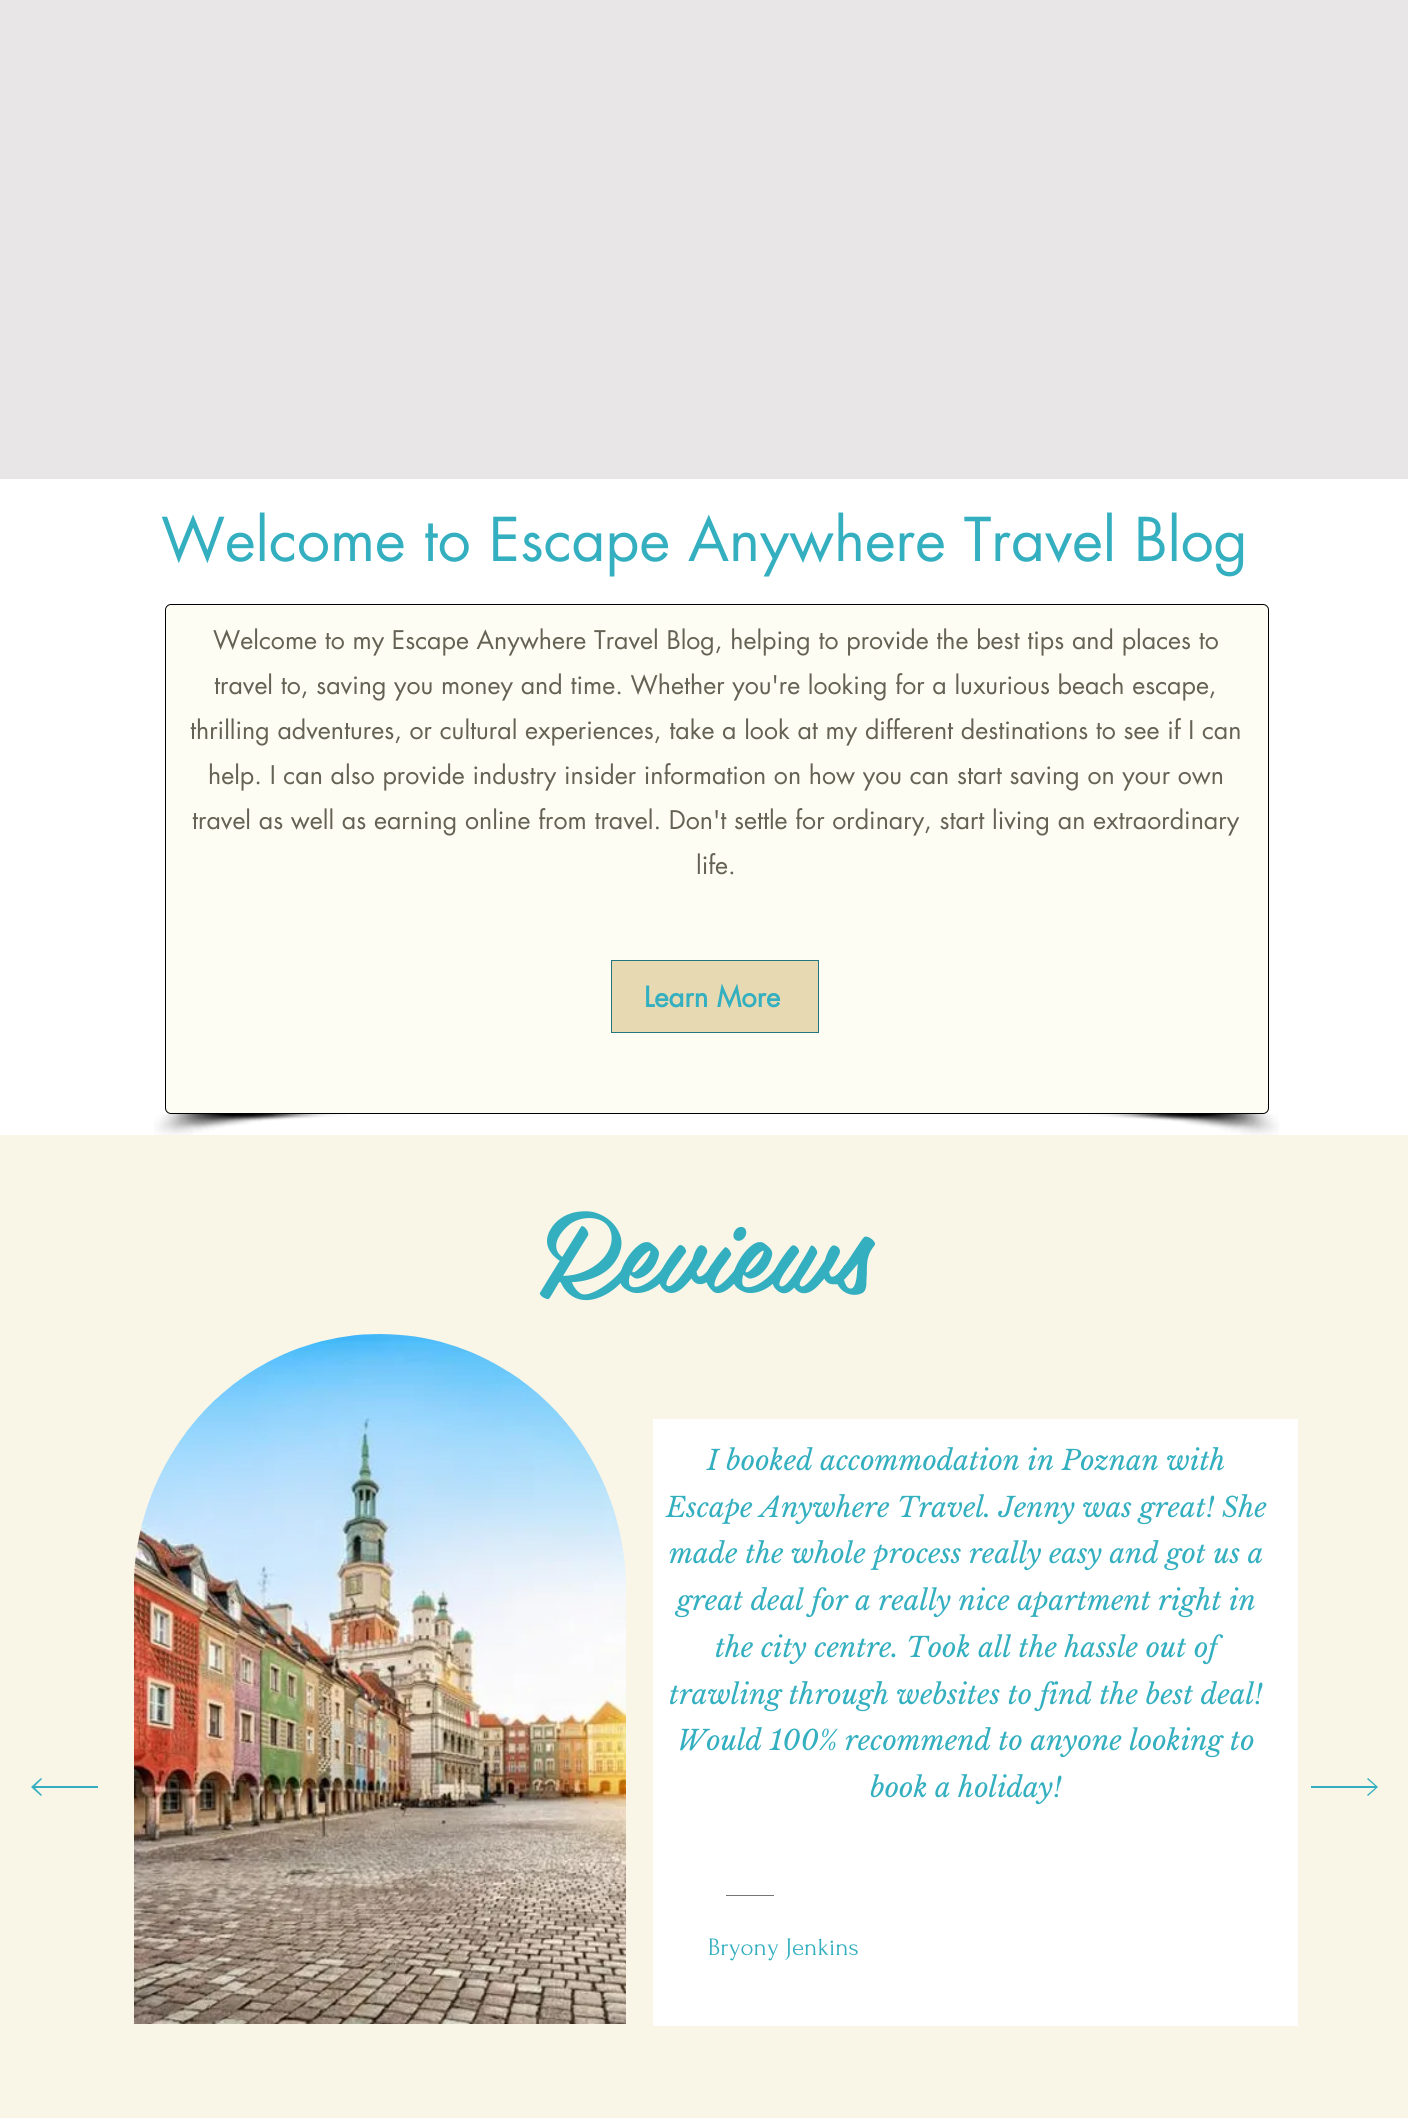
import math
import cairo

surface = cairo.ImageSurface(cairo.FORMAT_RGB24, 1408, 2118)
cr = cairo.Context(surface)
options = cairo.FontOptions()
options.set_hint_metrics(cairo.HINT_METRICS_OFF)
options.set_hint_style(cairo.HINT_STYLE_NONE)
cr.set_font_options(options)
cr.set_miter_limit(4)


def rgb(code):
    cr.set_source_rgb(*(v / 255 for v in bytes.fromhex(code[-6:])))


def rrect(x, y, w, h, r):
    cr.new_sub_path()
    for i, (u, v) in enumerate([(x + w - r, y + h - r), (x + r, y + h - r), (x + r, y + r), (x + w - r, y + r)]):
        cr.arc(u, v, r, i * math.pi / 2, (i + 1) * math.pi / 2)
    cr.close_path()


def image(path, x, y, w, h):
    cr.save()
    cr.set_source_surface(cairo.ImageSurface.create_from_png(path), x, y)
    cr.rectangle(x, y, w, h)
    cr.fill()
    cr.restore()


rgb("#e8e6e6")
cr.paint()
rgb("#ffffff")
cr.rectangle(0, 479, 1408, 656)
cr.fill()
rgb("#fefdf3")
rrect(165.5, 604.5, 1103, 509, 5.5)
cr.fill_preserve()
rgb("#000000")
cr.set_line_width(1)
cr.stroke()
rgb("#e7dab3")
cr.rectangle(611.5, 960.5, 207, 72)
cr.fill_preserve()
rgb("#237580")
cr.stroke()
image("img/1.png", 154, 1114, 192, 22)
image("img/2.png", 1088, 1114, 191, 22)
cr.set_source_rgba(0.992, 0.98, 0.906, 0.8)
cr.rectangle(0, 1135, 1408, 983)
cr.fill()
rgb("#34afc0")
cr.new_path()
cr.move_to(41, 1778)
cr.line_to(42, 1779)
cr.line_to(35, 1786)
cr.line_to(98, 1786)
cr.line_to(98, 1788)
cr.line_to(35, 1788)
cr.line_to(42, 1795)
cr.line_to(41, 1796)
cr.line_to(31, 1787)
cr.close_path()
cr.fill()
image("img/3.png", 134, 1334, 492, 690)
rgb("#ffffff")
cr.rectangle(653, 1419, 645, 607)
cr.fill()
rgb("#757575")
cr.rectangle(726, 1895, 48, 1)
cr.fill()
rgb("#34afc0")
cr.new_path()
cr.move_to(1368, 1778)
cr.line_to(1367, 1779)
cr.line_to(1375, 1786)
cr.line_to(1311, 1786)
cr.line_to(1311, 1788)
cr.line_to(1375, 1788)
cr.line_to(1367, 1795)
cr.line_to(1368, 1796)
cr.line_to(1378, 1787)
cr.close_path()
cr.fill()
cr.select_font_face("futura")
cr.set_font_size(58.75)
cr.move_to(161, 561)
cr.show_text("Welcome to Escape Anywhere Travel Blog")
cr.set_font_size(25)
rgb("#646254")
for x, y, s in [
    (213, 649, "Welcome to my Escape Anywhere Travel Blog, helping to provide the best tips and places to"),
    (214, 694, "travel to, saving you money and time. Whether you're looking for a luxurious beach escape,"),
    (190, 739, "thrilling adventures, or cultural experiences, take a look at my different destinations to see if I can"),
    (208, 784, "help. I can also provide industry insider information on how you can start saving on your own"),
    (192, 829, "travel as well as earning online from travel. Don't settle for ordinary, start living an extraordinary"),
    (696, 874, "life."),
]:
    cr.move_to(x, y)
    cr.show_text(s)
cr.select_font_face("futura", cairo.FONT_SLANT_NORMAL, cairo.FONT_WEIGHT_BOLD)
cr.set_font_size(27.5)
rgb("#34afc0")
cr.move_to(644, 1007)
cr.show_text("Learn More")
cr.select_font_face("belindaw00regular")
cr.set_font_size(112.5)
cr.move_to(537, 1293)
cr.show_text("Reviews")
cr.select_font_face("Libre Baskerville", cairo.FONT_SLANT_ITALIC)
cr.set_font_size(27.5)
for x, y, s in [
    (707, 1470, "I booked accommodation in Poznan with"),
    (666, 1517, "Escape Anywhere Travel. Jenny was great! She"),
    (669, 1563, "made the whole process really easy and got us a"),
    (677, 1610, "great deal for a really nice apartment right in"),
    (715, 1657, "the city centre. Took all the hassle out of"),
    (669, 1704, "trawling through websites to find the best deal!"),
    (677, 1750, "Would 100% recommend to anyone looking to"),
    (870, 1797, "book a holiday!"),
]:
    cr.move_to(x, y)
    cr.show_text(s)
cr.select_font_face("Forum")
cr.set_font_size(25)
cr.move_to(708, 1955)
cr.show_text("Bryony Jenkins")
surface.write_to_png("page.png")
